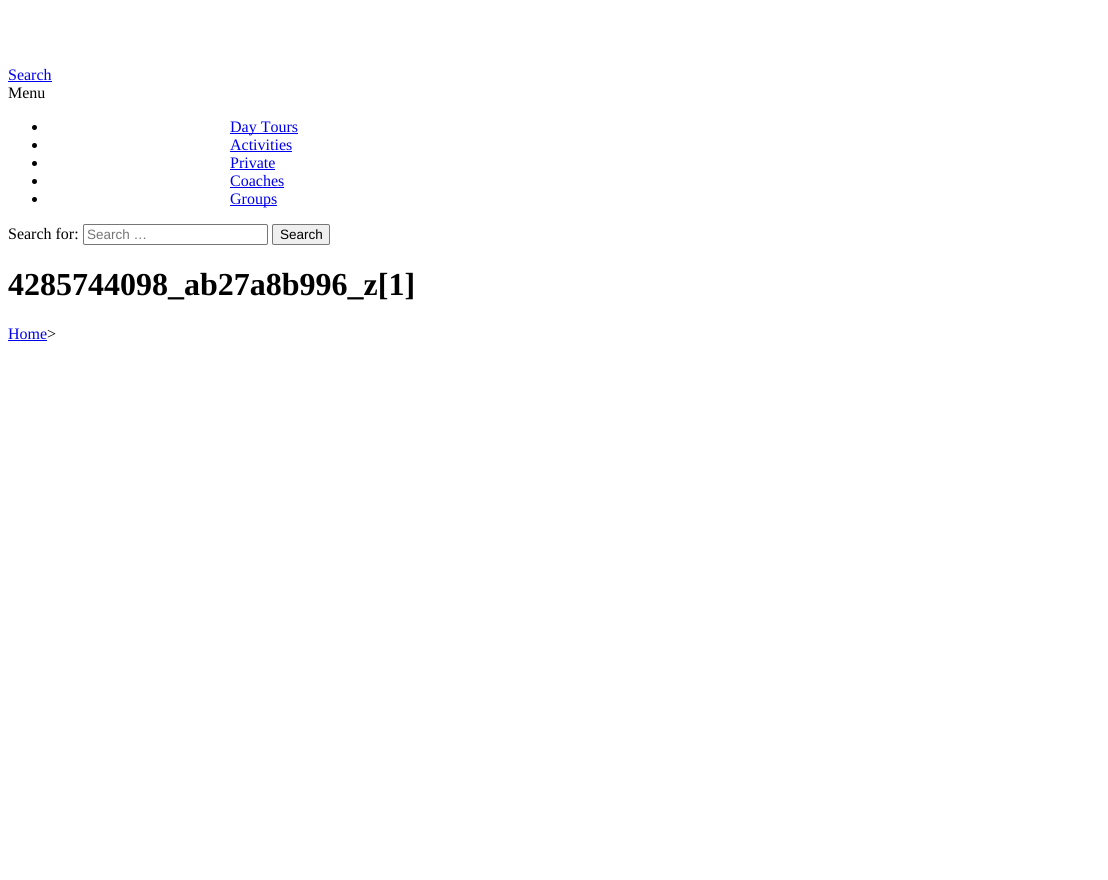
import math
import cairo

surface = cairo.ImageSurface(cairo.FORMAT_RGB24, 1108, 880)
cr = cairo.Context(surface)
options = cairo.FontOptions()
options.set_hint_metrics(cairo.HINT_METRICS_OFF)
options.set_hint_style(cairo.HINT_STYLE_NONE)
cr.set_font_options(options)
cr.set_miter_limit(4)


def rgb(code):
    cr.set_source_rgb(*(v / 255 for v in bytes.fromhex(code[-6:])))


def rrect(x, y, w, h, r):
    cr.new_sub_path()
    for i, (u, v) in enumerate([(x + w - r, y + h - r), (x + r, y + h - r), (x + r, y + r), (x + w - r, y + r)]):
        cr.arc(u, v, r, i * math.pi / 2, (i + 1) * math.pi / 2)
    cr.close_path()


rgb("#ffffff")
cr.paint()
rgb("#0000ee")
cr.rectangle(8, 81, 44, 1)
cr.fill()
rgb("#000000")
cr.arc(34.5, 127.5, 2.5, 0, 2 * math.pi)
cr.fill()
rgb("#0000ee")
cr.rectangle(230, 133, 68, 1)
cr.fill()
rgb("#000000")
cr.arc(34.5, 145.5, 2.5, 0, 2 * math.pi)
cr.fill()
rgb("#0000ee")
cr.rectangle(230, 151, 62, 1)
cr.fill()
rgb("#000000")
cr.arc(34.5, 163.5, 2.5, 0, 2 * math.pi)
cr.fill()
rgb("#0000ee")
cr.rectangle(230, 169, 45, 1)
cr.fill()
rgb("#000000")
cr.arc(34.5, 181.5, 2.5, 0, 2 * math.pi)
cr.fill()
rgb("#0000ee")
cr.rectangle(230, 187, 54, 1)
cr.fill()
rgb("#000000")
cr.arc(34.5, 199.5, 2.5, 0, 2 * math.pi)
cr.fill()
rgb("#0000ee")
cr.rectangle(230, 205, 47, 1)
cr.fill()
rrect(83.5, 224.5, 184, 20, 1.5)
rgb("#767676")
cr.set_line_width(1)
cr.stroke()
rgb("#efefef")
rrect(272.5, 224.5, 57, 20, 1.5)
cr.fill_preserve()
rgb("#767676")
cr.stroke()
rgb("#0000ee")
cr.rectangle(8, 340, 39, 1)
cr.fill()
cr.select_font_face("Liberation Serif")
cr.set_font_size(16)
cr.move_to(8, 80)
cr.show_text("Search")
rgb("#000000")
cr.move_to(8, 98)
cr.show_text("Menu")
rgb("#0000ee")
for x, y, s in [
    (230, 132, "Day Tours"),
    (230, 150, "Activities"),
    (230, 168, "Private"),
    (230, 186, "Coaches"),
    (230, 204, "Groups"),
]:
    cr.move_to(x, y)
    cr.show_text(s)
rgb("#000000")
cr.move_to(8, 239)
cr.show_text("Search for:")
cr.select_font_face("Liberation Sans")
cr.set_font_size(13.5)
rgb("#757575")
cr.move_to(87, 239)
cr.show_text("Search …")
rgb("#000000")
cr.move_to(280, 239)
cr.show_text("Search")
cr.select_font_face("Liberation Serif", cairo.FONT_SLANT_NORMAL, cairo.FONT_WEIGHT_BOLD)
cr.set_font_size(32)
cr.move_to(8, 295)
cr.show_text("4285744098_ab27a8b996_z[1]")
cr.select_font_face("Liberation Serif")
cr.set_font_size(16)
rgb("#0000ee")
cr.move_to(8, 339)
cr.show_text("Home")
rgb("#000000")
cr.move_to(47, 339)
cr.show_text(">")
surface.write_to_png("page.png")
